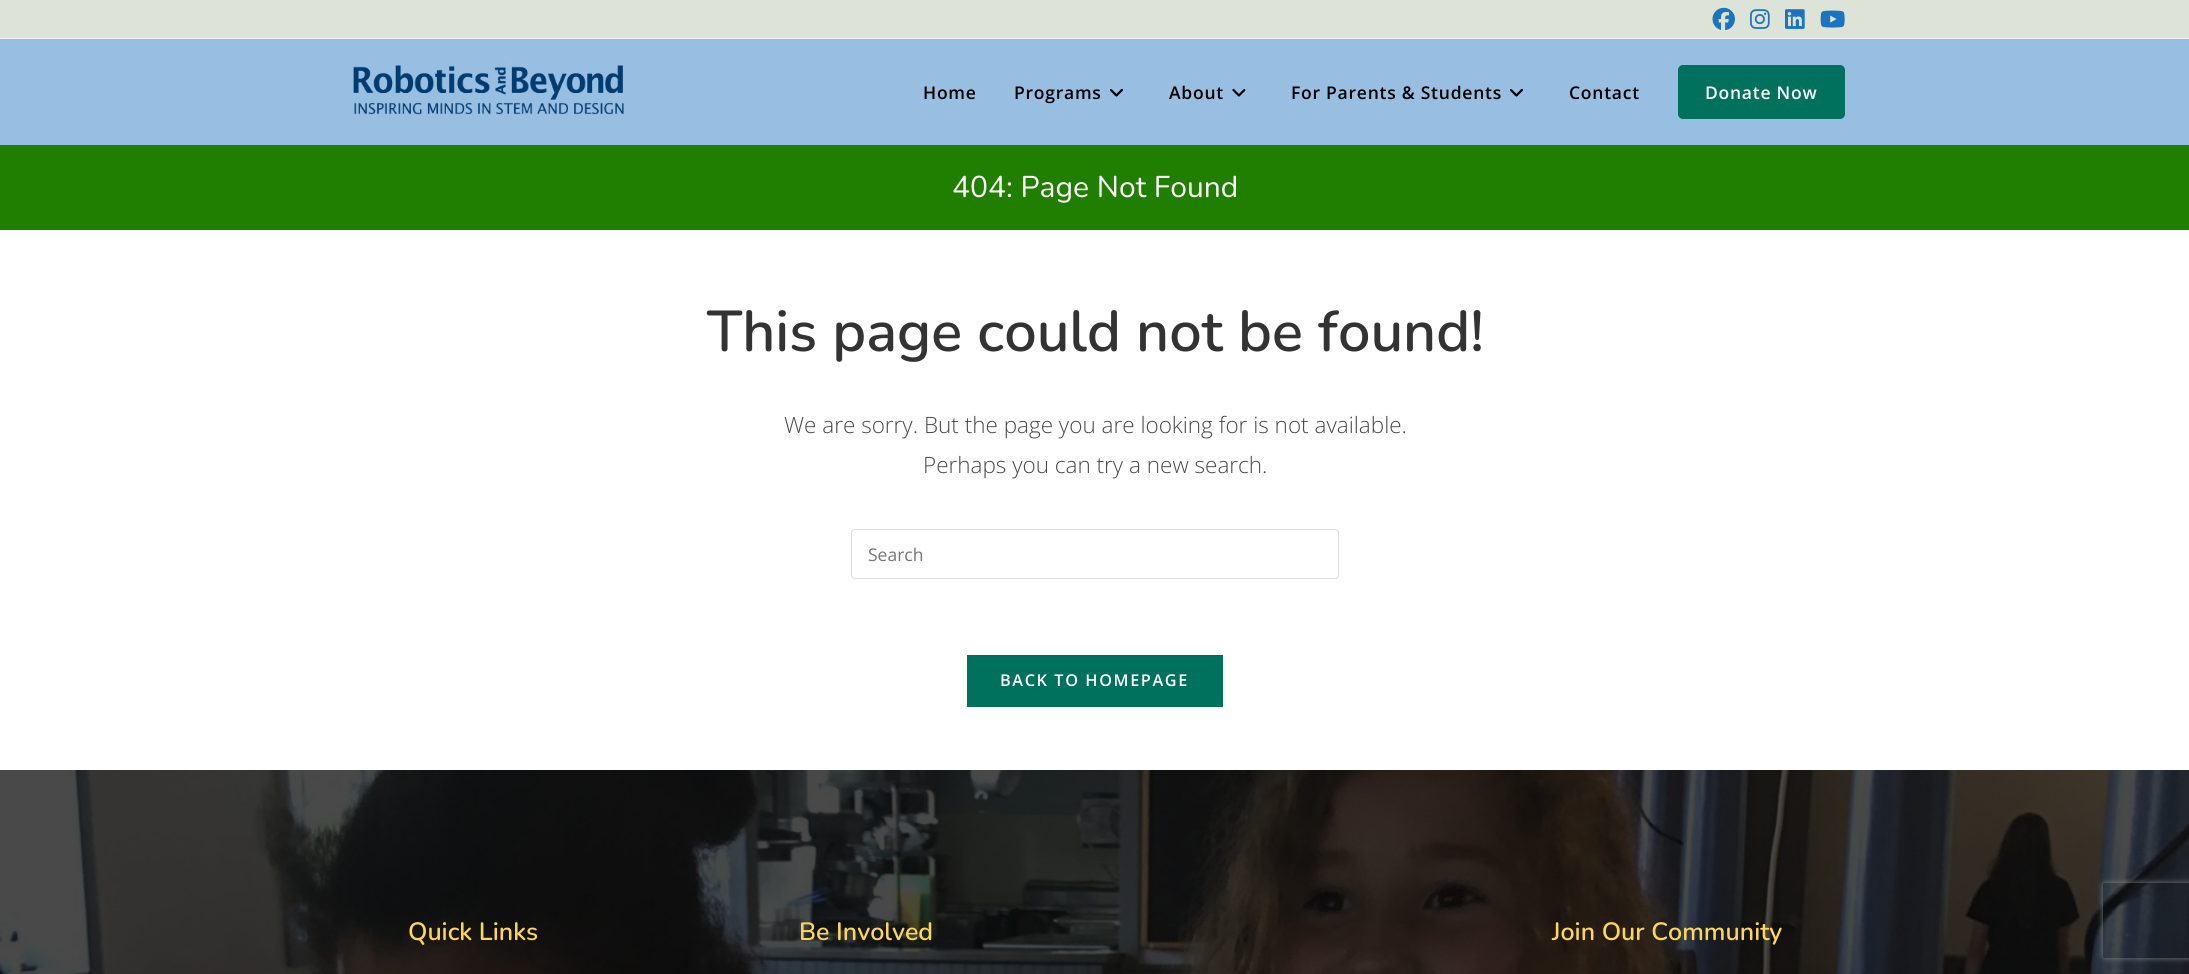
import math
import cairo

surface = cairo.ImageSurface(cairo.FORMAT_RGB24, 2189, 974)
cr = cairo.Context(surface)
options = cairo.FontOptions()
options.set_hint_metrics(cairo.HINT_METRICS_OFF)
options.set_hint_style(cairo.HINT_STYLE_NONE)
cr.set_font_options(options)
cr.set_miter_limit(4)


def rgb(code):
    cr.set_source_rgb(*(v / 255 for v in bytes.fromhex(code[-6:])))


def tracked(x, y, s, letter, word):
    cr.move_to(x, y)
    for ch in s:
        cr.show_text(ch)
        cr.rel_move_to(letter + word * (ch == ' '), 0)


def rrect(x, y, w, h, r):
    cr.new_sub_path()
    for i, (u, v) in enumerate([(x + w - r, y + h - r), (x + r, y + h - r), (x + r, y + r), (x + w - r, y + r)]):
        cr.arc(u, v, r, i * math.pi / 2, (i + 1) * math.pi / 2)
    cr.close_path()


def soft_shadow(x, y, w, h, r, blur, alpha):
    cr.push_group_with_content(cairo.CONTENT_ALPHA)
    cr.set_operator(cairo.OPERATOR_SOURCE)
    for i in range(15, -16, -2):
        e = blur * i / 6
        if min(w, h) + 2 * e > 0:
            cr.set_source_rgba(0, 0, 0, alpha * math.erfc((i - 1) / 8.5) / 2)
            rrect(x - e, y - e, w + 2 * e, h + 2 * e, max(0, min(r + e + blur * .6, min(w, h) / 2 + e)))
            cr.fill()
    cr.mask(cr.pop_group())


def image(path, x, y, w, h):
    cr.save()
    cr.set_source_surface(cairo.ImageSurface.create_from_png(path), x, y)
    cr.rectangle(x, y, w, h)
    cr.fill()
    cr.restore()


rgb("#ffffff")
cr.paint()
rgb("#dde4d7")
cr.rectangle(0, 0, 2189, 38)
cr.fill()
rgb("#f1f1f1")
cr.rectangle(0, 38, 2189, 1)
cr.fill()
image("img/1.png", 1712, 7, 23, 24)
image("img/2.png", 1750, 9, 20, 20)
image("img/3.png", 1785, 9, 20, 20)
image("img/4.png", 1820, 10, 25, 18)
rgb("#98bfe2")
cr.rectangle(0, 39, 2189, 106)
cr.fill()
image("img/5.png", 353, 57, 271, 58)
image("img/6.png", 1109, 88, 14, 9)
image("img/7.png", 1232, 88, 14, 9)
image("img/6.png", 1509, 88, 14, 9)
rgb("#00715d")
rrect(1678, 65, 167, 54, 5)
cr.fill()
rgb("#207f01")
cr.rectangle(0, 145, 2189, 85)
cr.fill()
rrect(851.5, 529.5, 487, 49, 3.5)
rgb("#dddddd")
cr.set_line_width(1)
cr.stroke()
rgb("#00715d")
cr.rectangle(967, 655, 256, 52)
cr.fill()
image("img/8.png", 0, 770, 2189, 204)
cr.save()
cr.set_fill_rule(cairo.FILL_RULE_EVEN_ODD)
cr.new_path()
cr.move_to(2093, 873)
cr.line_to(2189, 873)
cr.line_to(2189, 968)
cr.line_to(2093, 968)
cr.close_path()
cr.move_to(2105.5, 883)
cr.line_to(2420.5, 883)
cr.curve_to(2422, 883, 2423, 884, 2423, 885.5)
cr.line_to(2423, 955.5)
cr.curve_to(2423, 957, 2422, 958, 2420.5, 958)
cr.line_to(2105.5, 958)
cr.curve_to(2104, 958, 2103, 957, 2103, 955.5)
cr.line_to(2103, 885.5)
cr.curve_to(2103, 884, 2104, 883, 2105.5, 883)
cr.close_path()
cr.clip()
rgb("#808080")
soft_shadow(2103, 883, 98, 75, 2.5, 3, 1)
cr.restore()
cr.select_font_face("Open Sans SemiBold")
cr.set_font_size(17.5)
rgb("#000000")
for x, y, s in [
    (923, 99, "Home"),
    (1014, 99, "Programs"),
    (1169, 99, "About"),
    (1291, 99, "For Parents & Students"),
    (1569, 99, "Contact"),
]:
    tracked(x, y, s, 0.75, 0)
rgb("#ffffff")
tracked(1705, 99, "Donate Now", 0.75, 0)
cr.select_font_face("Nunito")
cr.set_font_size(30)
cr.move_to(952, 197)
cr.show_text("404: Page Not Found")
cr.select_font_face("Nunito SemiBold")
cr.set_font_size(57.5)
rgb("#333333")
cr.move_to(707, 351)
cr.show_text("This page could not be found!")
cr.select_font_face("Open Sans Light")
cr.set_font_size(22.5)
rgb("#4a4a4a")
cr.move_to(784, 433)
cr.show_text("We are sorry. But the page you are looking for is not available.")
cr.move_to(923, 473)
cr.show_text("Perhaps you can try a new search.")
cr.select_font_face("Open Sans")
cr.set_font_size(17.5)
rgb("#757575")
cr.move_to(868, 561)
cr.show_text("Search")
cr.select_font_face("Open Sans SemiBold")
cr.set_font_size(16.25)
rgb("#ffffff")
tracked(1000, 686, "BACK TO HOMEPAGE", 1.6, 0)
cr.select_font_face("Nunito SemiBold")
cr.set_font_size(25)
rgb("#fdd65b")
for x, y, s in [
    (408, 940, "Quick Links"),
    (799, 940, "Be Involved"),
    (1552, 940, "Join Our Community"),
]:
    cr.move_to(x, y)
    cr.show_text(s)
surface.write_to_png("page.png")
